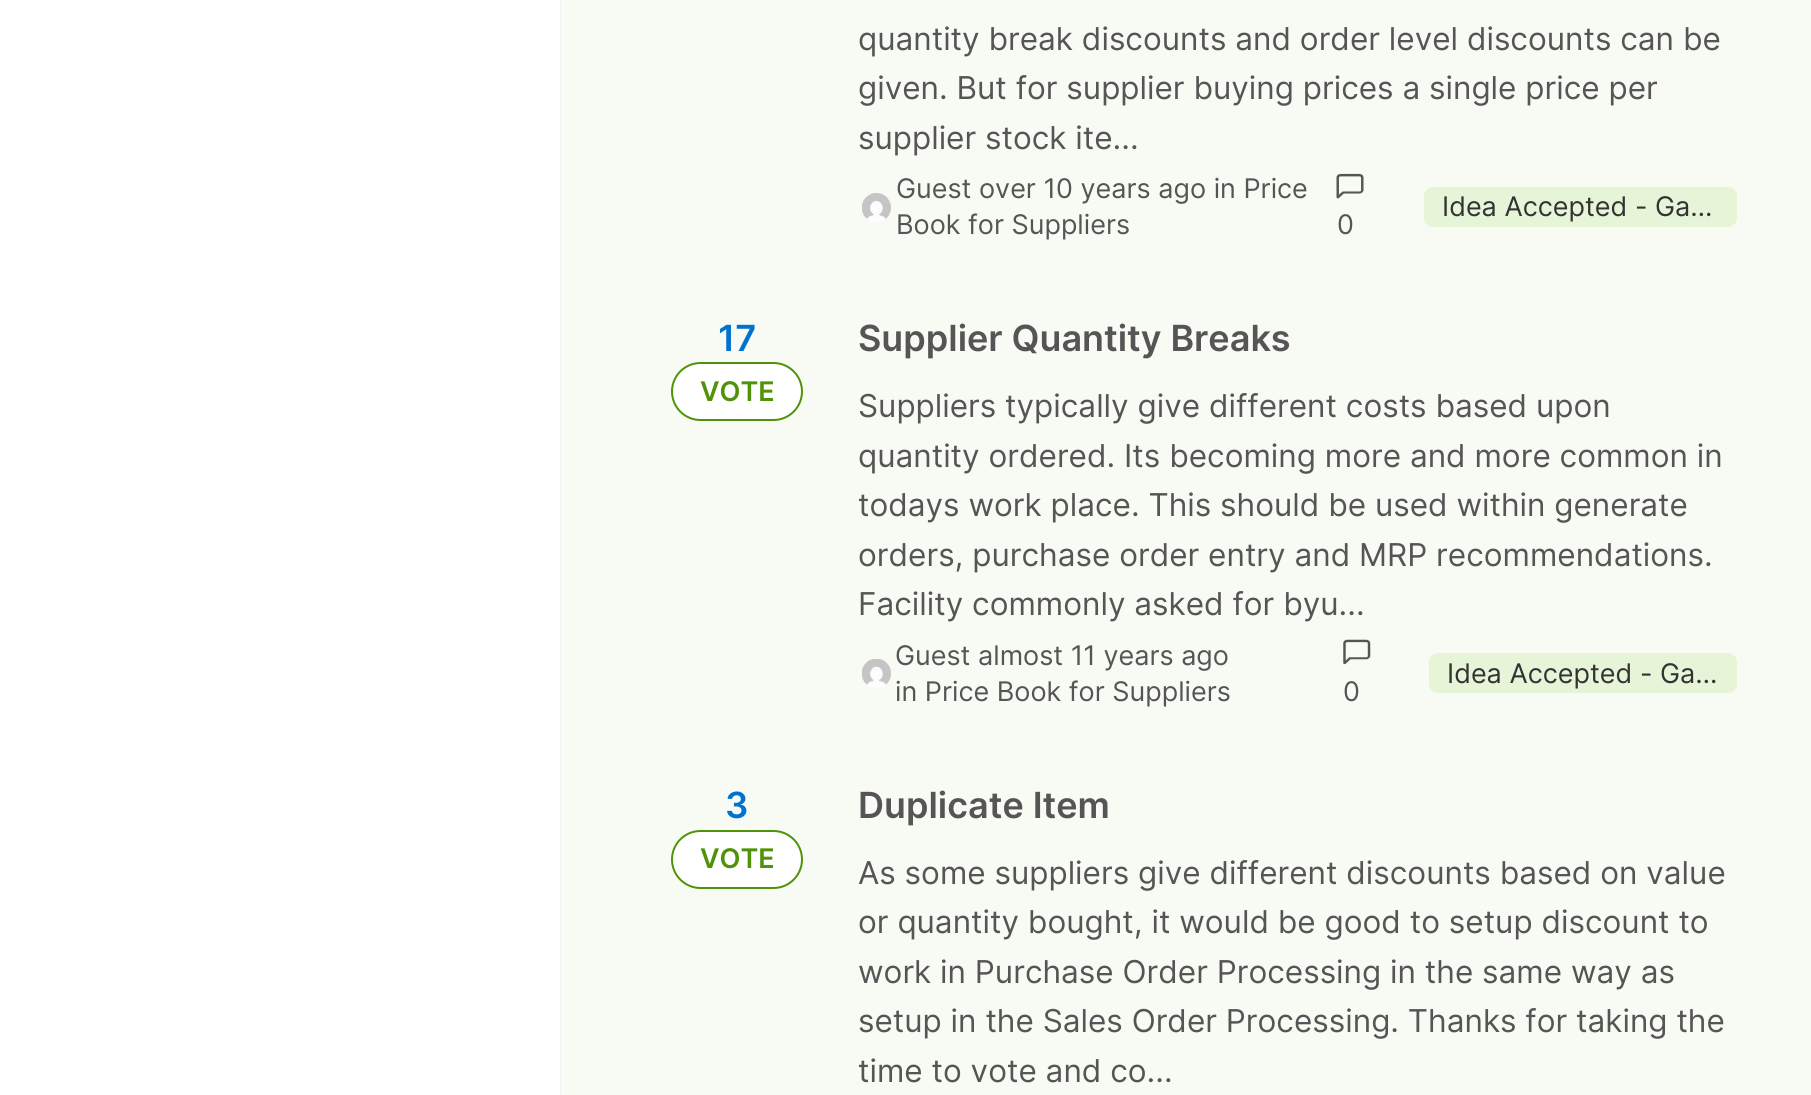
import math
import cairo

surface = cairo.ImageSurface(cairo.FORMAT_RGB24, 1811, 1095)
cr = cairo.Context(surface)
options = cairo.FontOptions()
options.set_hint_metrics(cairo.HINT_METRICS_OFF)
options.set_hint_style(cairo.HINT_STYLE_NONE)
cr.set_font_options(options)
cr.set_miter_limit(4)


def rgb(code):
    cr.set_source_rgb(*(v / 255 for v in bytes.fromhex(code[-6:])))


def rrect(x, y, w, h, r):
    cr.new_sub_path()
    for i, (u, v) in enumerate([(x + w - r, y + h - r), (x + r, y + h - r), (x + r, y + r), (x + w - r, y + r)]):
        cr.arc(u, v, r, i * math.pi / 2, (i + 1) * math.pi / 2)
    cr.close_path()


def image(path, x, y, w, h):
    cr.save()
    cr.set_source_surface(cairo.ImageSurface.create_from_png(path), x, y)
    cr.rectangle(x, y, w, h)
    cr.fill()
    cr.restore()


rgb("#f7fbf4")
cr.paint()
rgb("#ffffff")
cr.rectangle(0, 0, 563, 1095)
cr.fill()
rgb("#f4f4f4")
cr.rectangle(560, 0, 2, 1095)
cr.fill()
image("img/1.png", 862, 193, 29, 29)
rgb("#e6f4d8")
rrect(1424, 187, 313, 40, 9)
cr.fill()
image("img/2.png", 1336, 173, 28, 26)
rgb("#ffffff")
rrect(672, 363, 130, 57, 28.5)
cr.fill_preserve()
rgb("#509308")
cr.stroke()
image("img/3.png", 862, 659, 29, 29)
rgb("#e6f4d8")
rrect(1429, 653, 308, 40, 9)
cr.fill()
image("img/4.png", 1343, 639, 28, 26)
rgb("#ffffff")
rrect(672, 831, 130, 57, 28.5)
cr.fill_preserve()
rgb("#509308")
cr.stroke()
cr.select_font_face("Inter")
cr.set_font_size(31.5)
rgb("#555555")
for x, y, s in [
    (858, 50, "quantity break discounts and order level discounts can be"),
    (858, 99, "given. But for supplier buying prices a single price per"),
    (858, 149, "supplier stock ite..."),
]:
    cr.move_to(x, y)
    cr.show_text(s)
cr.set_font_size(27)
cr.move_to(896, 198)
cr.show_text("Guest over 10 years ago in Price")
cr.move_to(896, 234)
cr.show_text("Book for Suppliers")
rgb("#333333")
cr.move_to(1442, 216)
cr.show_text("Idea Accepted - Ga…")
rgb("#555555")
cr.move_to(1337, 234)
cr.show_text("0")
cr.select_font_face("Inter SemiBold")
cr.set_font_size(36)
rgb("#0073cf")
cr.move_to(718, 351)
cr.show_text("17")
cr.set_font_size(27)
rgb("#509308")
cr.move_to(700, 401)
cr.show_text("VOTE")
cr.set_font_size(36)
rgb("#555555")
cr.move_to(858, 351)
cr.show_text("Supplier Quantity Breaks")
cr.select_font_face("Inter")
cr.set_font_size(31.5)
for x, y, s in [
    (858, 417, "Suppliers typically give different costs based upon"),
    (858, 467, "quantity ordered. Its becoming more and more common in"),
    (858, 516, "todays work place. This should be used within generate"),
    (858, 566, "orders, purchase order entry and MRP recommendations."),
    (858, 615, "Facility commonly asked for byu..."),
]:
    cr.move_to(x, y)
    cr.show_text(s)
cr.set_font_size(27)
cr.move_to(895, 665)
cr.show_text("Guest almost 11 years ago")
cr.move_to(895, 701)
cr.show_text("in Price Book for Suppliers")
rgb("#333333")
cr.move_to(1447, 683)
cr.show_text("Idea Accepted - Ga…")
rgb("#555555")
cr.move_to(1343, 701)
cr.show_text("0")
cr.select_font_face("Inter SemiBold")
cr.set_font_size(36)
rgb("#0073cf")
cr.move_to(725, 818)
cr.show_text("3")
cr.set_font_size(27)
rgb("#509308")
cr.move_to(700, 868)
cr.show_text("VOTE")
cr.set_font_size(36)
rgb("#555555")
cr.move_to(858, 818)
cr.show_text("Duplicate Item")
cr.select_font_face("Inter")
cr.set_font_size(31.5)
for x, y, s in [
    (858, 884, "As some suppliers give different discounts based on value"),
    (858, 933, "or quantity bought, it would be good to setup discount to"),
    (858, 983, "work in Purchase Order Processing in the same way as"),
    (858, 1032, "setup in the Sales Order Processing. Thanks for taking the"),
    (858, 1082, "time to vote and co..."),
]:
    cr.move_to(x, y)
    cr.show_text(s)
surface.write_to_png("page.png")
